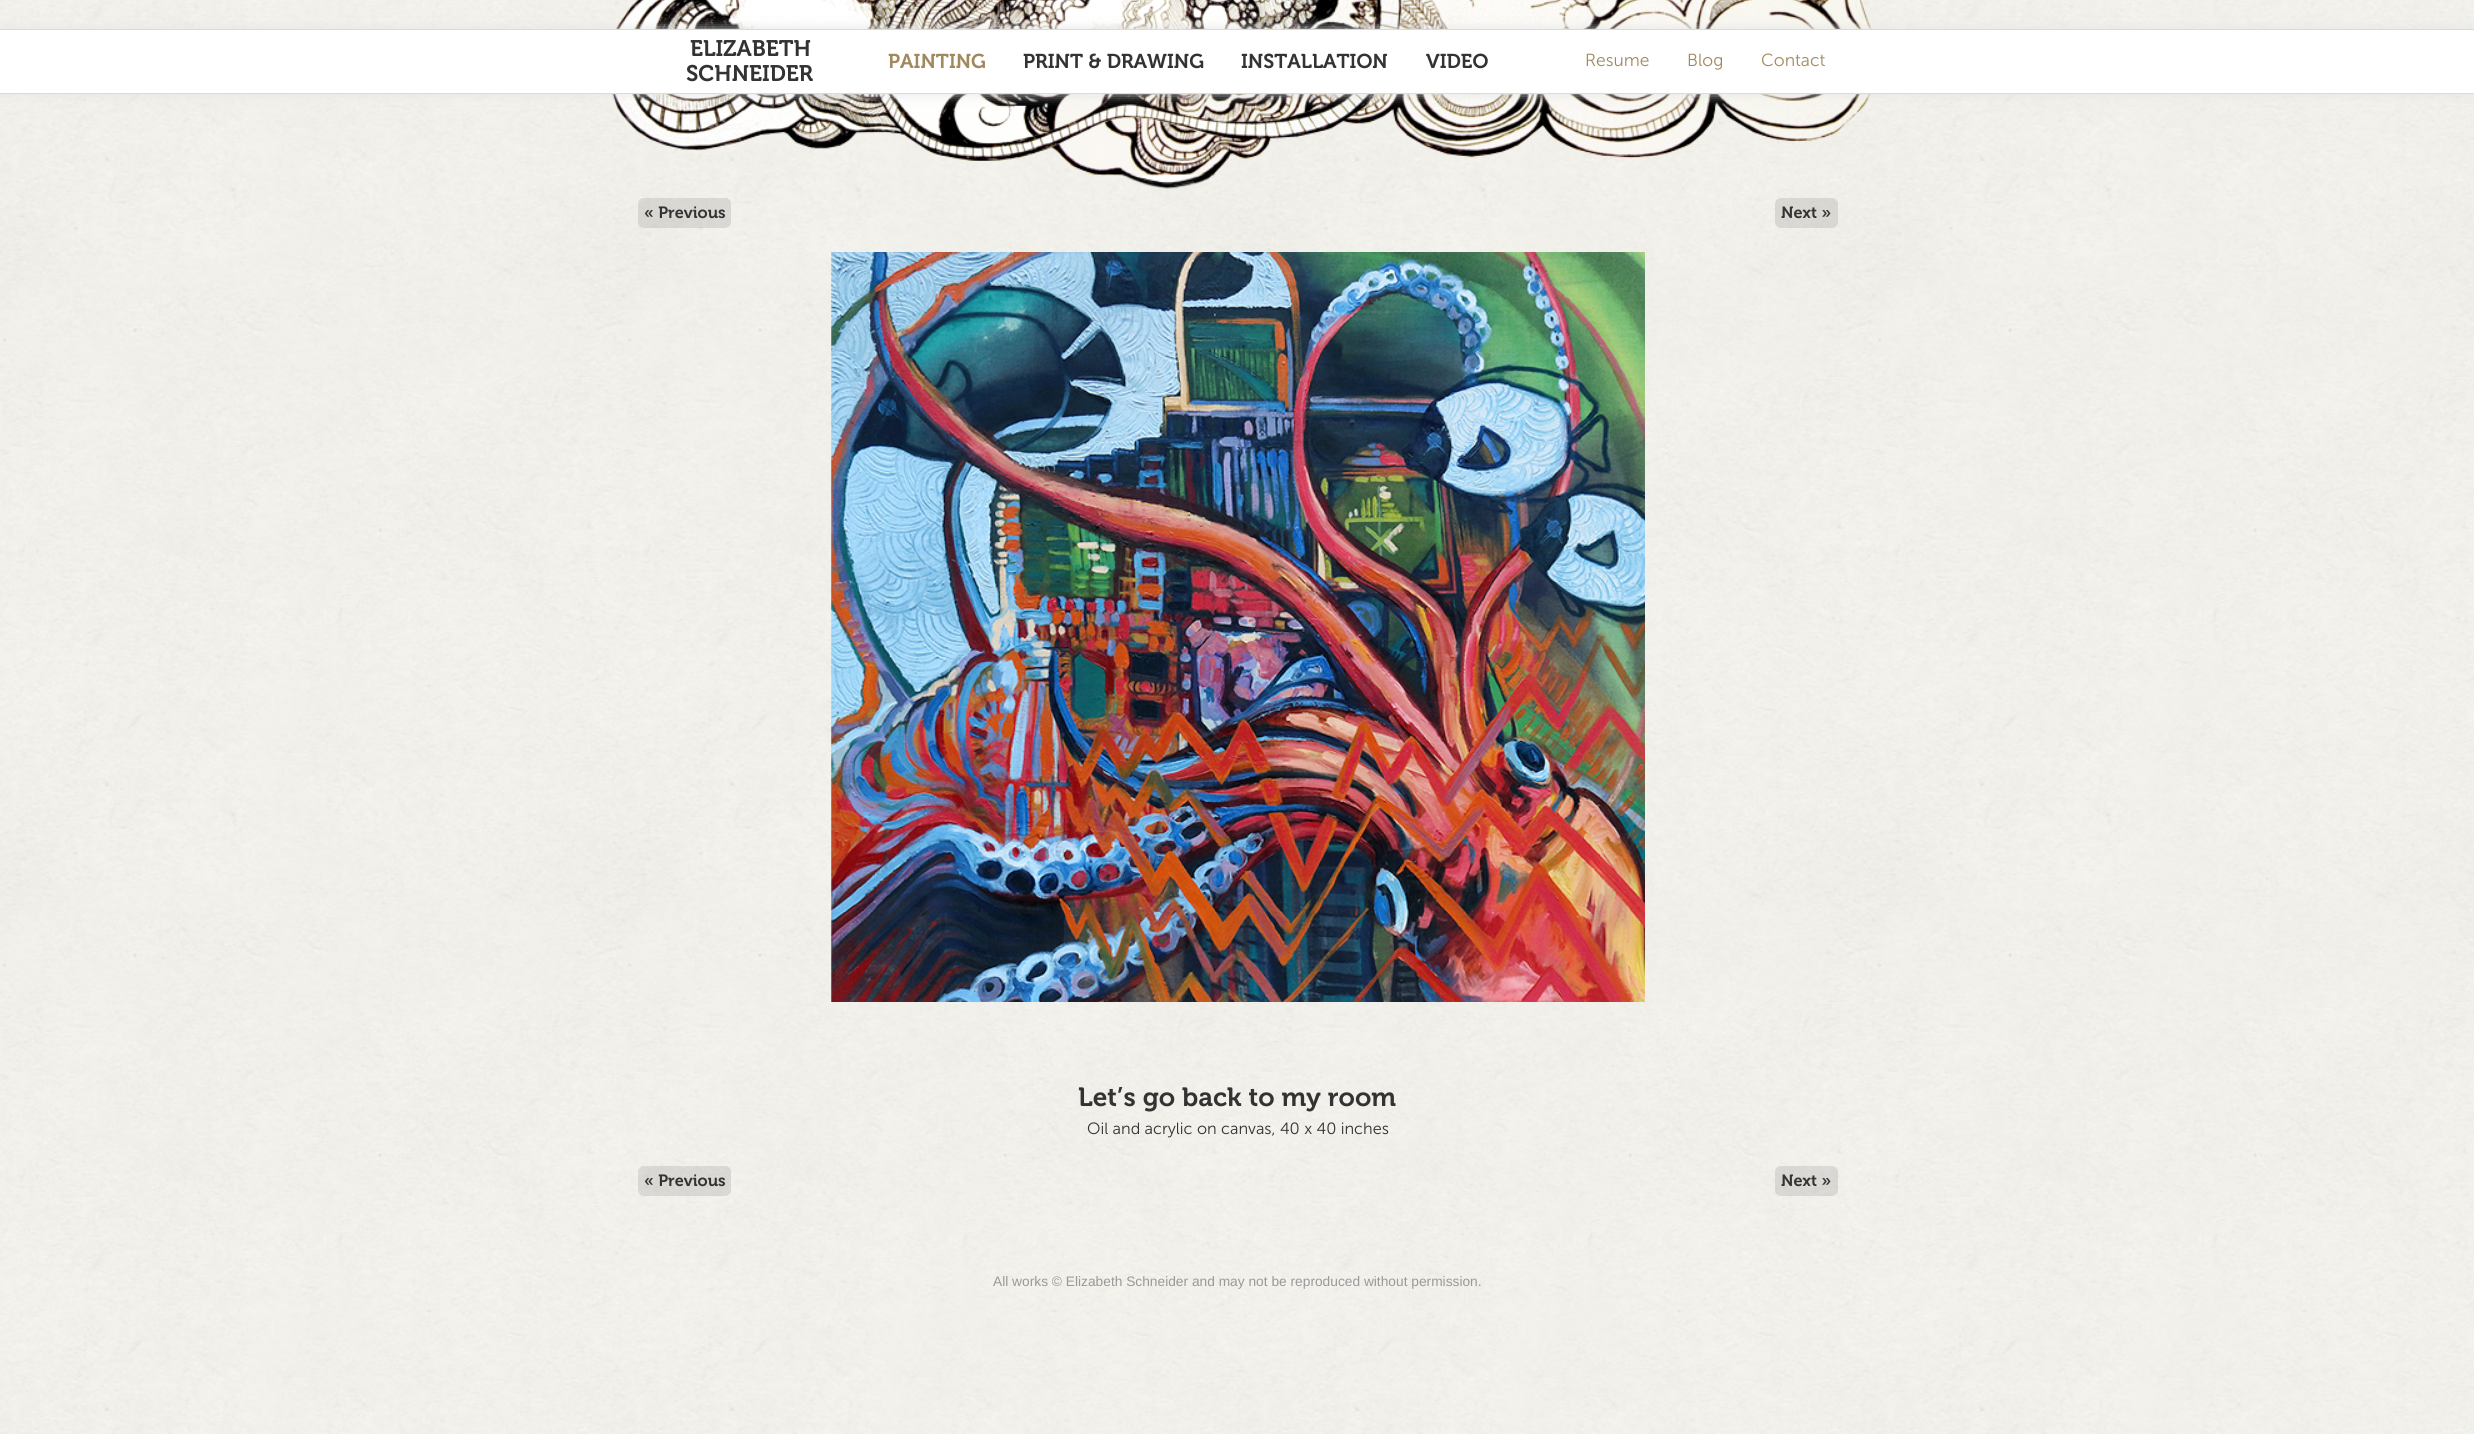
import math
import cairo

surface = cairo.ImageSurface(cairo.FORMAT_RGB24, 2474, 1434)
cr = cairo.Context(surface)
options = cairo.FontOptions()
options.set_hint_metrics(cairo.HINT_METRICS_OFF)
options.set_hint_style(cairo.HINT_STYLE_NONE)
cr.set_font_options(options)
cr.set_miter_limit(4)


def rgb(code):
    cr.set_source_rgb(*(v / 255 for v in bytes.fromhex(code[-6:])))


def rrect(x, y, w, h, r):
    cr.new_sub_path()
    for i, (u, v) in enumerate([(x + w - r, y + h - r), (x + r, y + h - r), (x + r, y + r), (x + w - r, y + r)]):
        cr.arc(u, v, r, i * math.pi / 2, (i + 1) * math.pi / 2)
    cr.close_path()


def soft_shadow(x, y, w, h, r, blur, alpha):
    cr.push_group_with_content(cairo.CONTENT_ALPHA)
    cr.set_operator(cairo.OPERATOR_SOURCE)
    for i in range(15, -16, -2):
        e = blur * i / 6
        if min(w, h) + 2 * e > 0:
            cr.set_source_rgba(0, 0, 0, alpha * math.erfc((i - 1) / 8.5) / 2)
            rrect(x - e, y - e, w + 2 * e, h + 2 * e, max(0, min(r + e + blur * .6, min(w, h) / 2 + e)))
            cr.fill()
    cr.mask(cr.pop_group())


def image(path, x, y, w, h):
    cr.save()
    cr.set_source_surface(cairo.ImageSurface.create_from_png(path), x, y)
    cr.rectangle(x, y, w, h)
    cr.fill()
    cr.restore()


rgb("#ffffff")
cr.paint()
image("img/1.png", 0, 0, 2474, 1434)
image("img/2.png", 612, 0, 1260, 190)
rgb("#e5e5e5")
soft_shadow(0, 29, 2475, 65, 0, 6, 1)
for x, y, w, h, color in [
    (0, 30, 2474, 63, "#ffffff"),
    (0, 29, 2474, 1, "#dbdbdb"),
    (0, 93, 2474, 1, "#dbdbdb"),
]:
    rgb(color)
    cr.rectangle(x, y, w, h)
    cr.fill()
cr.set_source_rgba(0, 0, 0, 0.1)
rrect(638, 198, 93, 30, 6)
cr.fill()
rrect(1775, 198, 63, 30, 6)
cr.fill()
image("img/3.png", 831, 252, 814, 750)
rrect(638, 1166, 93, 30, 6)
cr.fill()
rrect(1775, 1166, 63, 30, 6)
cr.fill()
cr.select_font_face("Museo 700 SemiBold")
cr.set_font_size(22.5)
rgb("#333333")
cr.move_to(690, 56)
cr.show_text("ELIZABETH")
cr.move_to(686, 81)
cr.show_text("SCHNEIDER")
cr.set_font_size(20)
rgb("#a1895e")
cr.move_to(888, 68)
cr.show_text("PAINTING")
rgb("#333333")
for x, y, s in [
    (1023, 68, "PRINT & DRAWING"),
    (1241, 68, "INSTALLATION"),
    (1426, 68, "VIDEO"),
]:
    cr.move_to(x, y)
    cr.show_text(s)
cr.select_font_face("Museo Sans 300 Light")
cr.set_font_size(17.5)
rgb("#a1895e")
for x, y, s in [
    (1585, 66, "Resume"),
    (1687, 66, "Blog"),
    (1761, 66, "Contact"),
]:
    cr.move_to(x, y)
    cr.show_text(s)
cr.select_font_face("Museo 700 SemiBold")
cr.set_font_size(16.25)
rgb("#333333")
cr.move_to(644, 218)
cr.show_text("« Previous")
cr.move_to(1781, 218)
cr.show_text("Next »")
cr.set_font_size(26.25)
cr.move_to(1078, 1106)
cr.show_text("Let’s go back to my room")
cr.select_font_face("Museo Sans 300 Light")
cr.set_font_size(16.25)
cr.move_to(1087, 1134)
cr.show_text("Oil and acrylic on canvas, 40 x 40 inches")
cr.select_font_face("Museo 700 SemiBold")
cr.move_to(644, 1186)
cr.show_text("« Previous")
cr.move_to(1781, 1186)
cr.show_text("Next »")
cr.select_font_face("Liberation Sans")
cr.set_font_size(13.75)
rgb("#999999")
cr.move_to(993, 1286)
cr.show_text("All works © Elizabeth Schneider and may not be reproduced without permission.")
surface.write_to_png("page.png")
